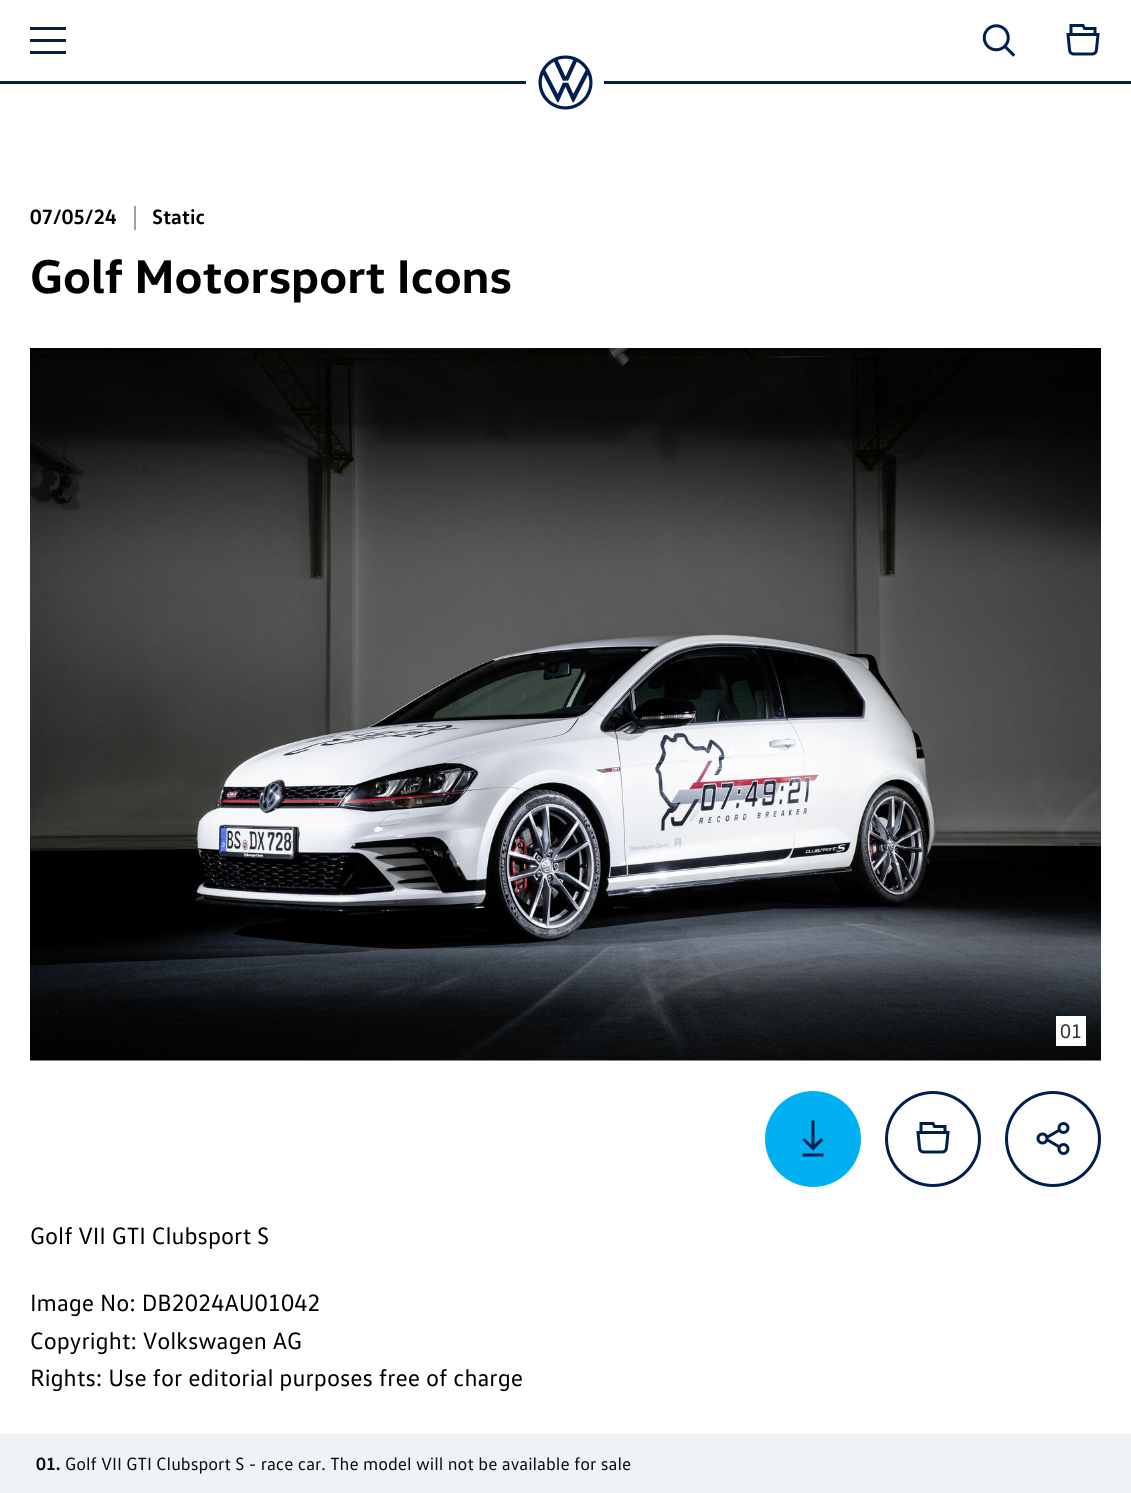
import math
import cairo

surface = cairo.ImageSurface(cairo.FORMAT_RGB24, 1131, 1493)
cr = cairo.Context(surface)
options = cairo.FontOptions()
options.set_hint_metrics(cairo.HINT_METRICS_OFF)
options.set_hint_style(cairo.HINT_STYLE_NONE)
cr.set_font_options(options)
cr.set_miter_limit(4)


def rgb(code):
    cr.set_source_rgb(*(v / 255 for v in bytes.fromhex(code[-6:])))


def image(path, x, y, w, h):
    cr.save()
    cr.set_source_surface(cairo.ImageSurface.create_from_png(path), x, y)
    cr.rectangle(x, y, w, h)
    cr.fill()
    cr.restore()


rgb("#ffffff")
cr.paint()
rgb("#001e50")
cr.rectangle(0, 81, 1131, 3)
cr.fill()
cr.new_path()
cr.move_to(30, 27)
cr.line_to(66, 27)
cr.line_to(66, 30)
cr.line_to(30, 30)
cr.close_path()
cr.move_to(30, 51)
cr.line_to(66, 51)
cr.line_to(66, 54)
cr.line_to(30, 54)
cr.close_path()
cr.move_to(30, 39)
cr.line_to(66, 39)
cr.line_to(66, 42)
cr.line_to(30, 42)
cr.close_path()
cr.fill()
image("img/1.png", 982, 24, 34, 33)
image("img/2.png", 1066, 24, 34, 32)
rgb("#ffffff")
cr.new_path()
cr.move_to(552, 56)
cr.line_to(579, 56)
cr.curve_to(593, 56, 604, 63, 604, 73)
cr.line_to(604, 92)
cr.curve_to(604, 102, 593, 110, 579, 110)
cr.line_to(552, 110)
cr.curve_to(538, 110, 526, 102, 526, 92)
cr.line_to(526, 73)
cr.curve_to(526, 63, 538, 56, 552, 56)
cr.close_path()
cr.fill()
image("img/3.png", 538, 55, 55, 55)
rgb("#96a3a8")
cr.rectangle(134, 206, 2, 24)
cr.fill()
image("img/4.png", 30, 348, 1071, 713)
rgb("#ffffff")
cr.rectangle(1056, 1016, 30, 30)
cr.fill()
rgb("#00b0f0")
cr.arc(813, 1139, 48, 0, 2 * math.pi)
cr.fill()
rgb("#001e50")
cr.new_path()
cr.move_to(811.5, 1145)
cr.line_to(811.5, 1120.5)
cr.line_to(814.5, 1120.5)
cr.line_to(814.5, 1144.5)
cr.line_to(821, 1138)
cr.line_to(823.5, 1140)
cr.line_to(813, 1150.5)
cr.line_to(802.5, 1140)
cr.line_to(804.5, 1138)
cr.close_path()
cr.move_to(802.5, 1153.5)
cr.line_to(823.5, 1153.5)
cr.line_to(823.5, 1156.5)
cr.line_to(802.5, 1156.5)
cr.close_path()
cr.fill()
cr.arc(933, 1139, 46.5, 0, 2 * math.pi)
cr.set_line_width(3)
cr.stroke()
image("img/2.png", 916, 1122, 34, 32)
cr.arc(1053, 1139, 46.5, 0, 2 * math.pi)
cr.stroke()
image("img/5.png", 1036, 1122, 34, 33)
rgb("#f0f3f5")
cr.rectangle(0, 1434, 1131, 59)
cr.fill()
cr.select_font_face("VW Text", cairo.FONT_SLANT_NORMAL, cairo.FONT_WEIGHT_BOLD)
cr.set_font_size(21)
rgb("#000000")
cr.move_to(30, 224)
cr.show_text("07/05/24")
cr.move_to(152, 224)
cr.show_text("Static")
cr.select_font_face("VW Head", cairo.FONT_SLANT_NORMAL, cairo.FONT_WEIGHT_BOLD)
cr.set_font_size(48)
cr.move_to(30, 293)
cr.show_text("Golf Motorsport Icons")
cr.select_font_face("VW Text")
cr.set_font_size(20)
rgb("#333333")
cr.move_to(1060, 1038)
cr.show_text("01")
cr.set_font_size(24)
rgb("#000000")
for x, y, s in [
    (30, 1244, "Golf VII GTI Clubsport S"),
    (30, 1311, "Image No: DB2024AU01042"),
    (30, 1349, "Copyright: Volkswagen AG"),
    (30, 1386, "Rights: Use for editorial purposes free of charge"),
]:
    cr.move_to(x, y)
    cr.show_text(s)
cr.select_font_face("VW Text", cairo.FONT_SLANT_NORMAL, cairo.FONT_WEIGHT_BOLD)
cr.set_font_size(18)
rgb("#0d0d0d")
cr.move_to(36, 1470)
cr.show_text("01.")
cr.select_font_face("VW Text")
cr.move_to(65, 1470)
cr.show_text("Golf VII GTI Clubsport S - race car. The model will not be available for sale")
surface.write_to_png("page.png")
